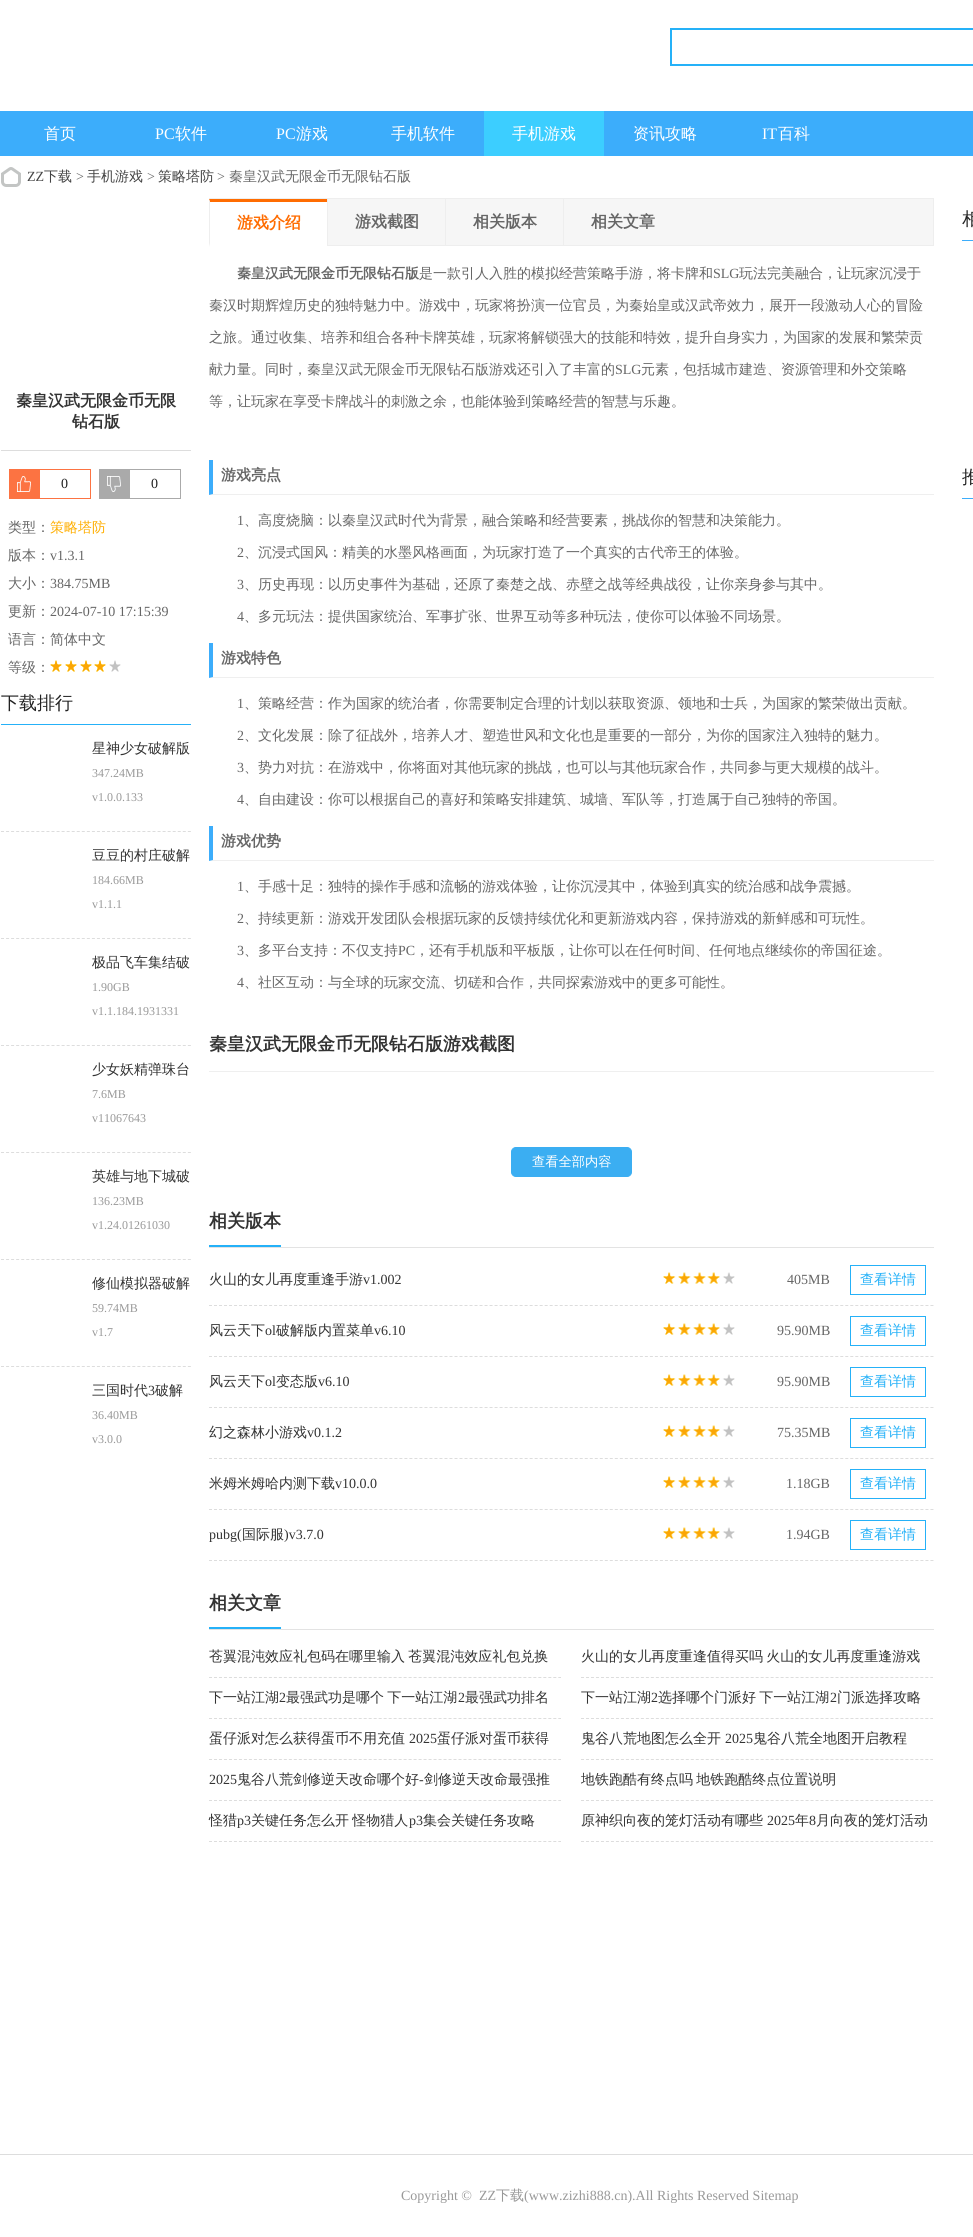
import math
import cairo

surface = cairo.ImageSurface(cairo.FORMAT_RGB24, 973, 2237)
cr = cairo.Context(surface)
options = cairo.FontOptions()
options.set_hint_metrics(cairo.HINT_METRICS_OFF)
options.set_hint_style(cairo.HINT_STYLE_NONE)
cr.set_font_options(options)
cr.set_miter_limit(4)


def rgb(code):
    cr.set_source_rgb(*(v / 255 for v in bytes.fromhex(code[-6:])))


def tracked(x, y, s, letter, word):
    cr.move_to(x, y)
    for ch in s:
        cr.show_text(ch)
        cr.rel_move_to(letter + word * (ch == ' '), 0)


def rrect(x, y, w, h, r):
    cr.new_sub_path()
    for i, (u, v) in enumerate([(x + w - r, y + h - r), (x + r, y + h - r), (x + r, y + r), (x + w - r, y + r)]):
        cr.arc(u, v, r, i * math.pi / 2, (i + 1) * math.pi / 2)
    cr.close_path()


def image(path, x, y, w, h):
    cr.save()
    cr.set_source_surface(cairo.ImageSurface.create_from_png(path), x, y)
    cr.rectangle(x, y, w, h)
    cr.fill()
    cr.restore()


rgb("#ffffff")
cr.paint()
cr.rectangle(671, 29, 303, 36)
rgb("#25b1f8")
cr.stroke()
rgb("#3cadfb")
cr.rectangle(0, 111, 973, 45)
cr.fill()
rgb("#3cceff")
cr.rectangle(484, 111, 120, 45)
cr.fill()
image("img/1.png", 1, 167, 20, 20)
rgb("#dddddd")
cr.rectangle(1, 450, 190, 1)
cr.fill()
image("img/2.png", 10, 470, 30, 28)
cr.rectangle(9.5, 469.5, 81, 29)
rgb("#fc7342")
cr.set_line_width(1)
cr.stroke()
image("img/3.png", 100, 470, 30, 28)
cr.rectangle(99.5, 469.5, 81, 29)
rgb("#aaaaaa")
cr.stroke()
image("img/4.png", 50, 660, 71, 12)
rgb("#25b1f8")
cr.rectangle(1, 724, 190, 1)
cr.fill()
cr.new_path()
cr.move_to(1, 831.5)
cr.line_to(191, 831.5)
rgb("#dddddd")
cr.set_dash([3, 2.05])
cr.stroke()
cr.new_path()
cr.move_to(1, 938.5)
cr.line_to(191, 938.5)
cr.stroke()
cr.new_path()
cr.move_to(1, 1045.5)
cr.line_to(191, 1045.5)
cr.stroke()
cr.new_path()
cr.move_to(1, 1152.5)
cr.line_to(191, 1152.5)
cr.stroke()
cr.new_path()
cr.move_to(1, 1259.5)
cr.line_to(191, 1259.5)
cr.stroke()
cr.new_path()
cr.move_to(1, 1366.5)
cr.line_to(191, 1366.5)
cr.stroke()
cr.rectangle(209.5, 198.5, 724, 47)
rgb("#eeeeee")
cr.set_dash([])
cr.stroke()
rgb("#f6f6f6")
cr.rectangle(328, 199, 605, 46)
cr.fill()
rgb("#ffffff")
cr.rectangle(209, 199, 119, 47)
cr.fill()
rgb("#ff6c01")
cr.new_path()
cr.move_to(209, 199)
cr.line_to(328, 199)
cr.line_to(328, 202)
cr.line_to(210, 202)
cr.close_path()
cr.fill()
rgb("#eeeeee")
cr.new_path()
cr.move_to(209, 247)
cr.line_to(209, 199)
cr.line_to(210, 202)
cr.line_to(210, 243)
cr.close_path()
cr.fill()
for x, y, w, h, color in [
    (327, 199, 1, 47, "#eeeeee"),
    (445, 199, 1, 47, "#eeeeee"),
    (563, 199, 1, 47, "#eeeeee"),
]:
    rgb(color)
    cr.rectangle(x, y, w, h)
    cr.fill()
rgb("#efefef")
cr.new_path()
cr.move_to(934, 495)
cr.line_to(209, 495)
cr.line_to(213, 494)
cr.line_to(934, 494)
cr.close_path()
cr.fill()
rgb("#3cadfb")
cr.new_path()
cr.move_to(209, 495)
cr.line_to(209, 460)
cr.line_to(213, 460)
cr.line_to(213, 494)
cr.close_path()
cr.fill()
rgb("#efefef")
cr.new_path()
cr.move_to(934, 678)
cr.line_to(209, 678)
cr.line_to(213, 677)
cr.line_to(934, 677)
cr.close_path()
cr.fill()
rgb("#3cadfb")
cr.new_path()
cr.move_to(209, 678)
cr.line_to(209, 643)
cr.line_to(213, 643)
cr.line_to(213, 677)
cr.close_path()
cr.fill()
rgb("#efefef")
cr.new_path()
cr.move_to(934, 861)
cr.line_to(209, 861)
cr.line_to(213, 860)
cr.line_to(934, 860)
cr.close_path()
cr.fill()
rgb("#3cadfb")
cr.new_path()
cr.move_to(209, 861)
cr.line_to(209, 826)
cr.line_to(213, 826)
cr.line_to(213, 860)
cr.close_path()
cr.fill()
rgb("#efefef")
cr.rectangle(209, 1071, 725, 1)
cr.fill()
rgb("#3baef2")
rrect(511.5, 1147.5, 120, 29, 4.5)
cr.fill_preserve()
cr.stroke()
rgb("#e3e3e3")
cr.rectangle(209, 1247, 725, 1)
cr.fill()
rgb("#25b1f8")
cr.rectangle(209, 1245, 72, 2)
cr.fill()
cr.new_path()
cr.move_to(209, 1305.5)
cr.line_to(934, 1305.5)
rgb("#dddddd")
cr.set_dash([3, 2.01])
cr.stroke()
image("img/5.png", 663, 1272, 72, 12)
cr.rectangle(850.5, 1265.5, 75, 29)
rgb("#25b1f8")
cr.set_dash([])
cr.stroke()
cr.new_path()
cr.move_to(209, 1356.5)
cr.line_to(934, 1356.5)
rgb("#dddddd")
cr.set_dash([3, 2.01])
cr.stroke()
image("img/5.png", 663, 1323, 72, 12)
cr.rectangle(850.5, 1316.5, 75, 29)
rgb("#25b1f8")
cr.set_dash([])
cr.stroke()
cr.new_path()
cr.move_to(209, 1407.5)
cr.line_to(934, 1407.5)
rgb("#dddddd")
cr.set_dash([3, 2.01])
cr.stroke()
image("img/5.png", 663, 1374, 72, 12)
cr.rectangle(850.5, 1367.5, 75, 29)
rgb("#25b1f8")
cr.set_dash([])
cr.stroke()
cr.new_path()
cr.move_to(209, 1458.5)
cr.line_to(934, 1458.5)
rgb("#dddddd")
cr.set_dash([3, 2.01])
cr.stroke()
image("img/5.png", 663, 1425, 72, 12)
cr.rectangle(850.5, 1418.5, 75, 29)
rgb("#25b1f8")
cr.set_dash([])
cr.stroke()
cr.new_path()
cr.move_to(209, 1509.5)
cr.line_to(934, 1509.5)
rgb("#dddddd")
cr.set_dash([3, 2.01])
cr.stroke()
image("img/5.png", 663, 1476, 72, 12)
cr.rectangle(850.5, 1469.5, 75, 29)
rgb("#25b1f8")
cr.set_dash([])
cr.stroke()
cr.new_path()
cr.move_to(209, 1560.5)
cr.line_to(934, 1560.5)
rgb("#dddddd")
cr.set_dash([3, 2.01])
cr.stroke()
image("img/5.png", 663, 1527, 72, 12)
cr.rectangle(850.5, 1520.5, 75, 29)
rgb("#25b1f8")
cr.set_dash([])
cr.stroke()
rgb("#e3e3e3")
cr.rectangle(209, 1629, 725, 1)
cr.fill()
rgb("#25b1f8")
cr.rectangle(209, 1627, 72, 2)
cr.fill()
cr.new_path()
cr.move_to(209, 1677.5)
cr.line_to(561, 1677.5)
rgb("#dddddd")
cr.set_dash([3, 1.99])
cr.stroke()
cr.new_path()
cr.move_to(581, 1677.5)
cr.line_to(933, 1677.5)
cr.stroke()
cr.new_path()
cr.move_to(209, 1718.5)
cr.line_to(561, 1718.5)
cr.stroke()
cr.new_path()
cr.move_to(581, 1718.5)
cr.line_to(933, 1718.5)
cr.stroke()
cr.new_path()
cr.move_to(209, 1759.5)
cr.line_to(561, 1759.5)
cr.stroke()
cr.new_path()
cr.move_to(581, 1759.5)
cr.line_to(933, 1759.5)
cr.stroke()
cr.new_path()
cr.move_to(209, 1800.5)
cr.line_to(561, 1800.5)
cr.stroke()
cr.new_path()
cr.move_to(581, 1800.5)
cr.line_to(933, 1800.5)
cr.stroke()
cr.new_path()
cr.move_to(209, 1841.5)
cr.line_to(561, 1841.5)
cr.stroke()
cr.new_path()
cr.move_to(581, 1841.5)
cr.line_to(933, 1841.5)
cr.stroke()
for x, y, w, h, color in [
    (962, 240, 11, 1, "#3cadfb"),
    (962, 498, 11, 1, "#3cadfb"),
    (0, 2154, 973, 1, "#dddddd"),
]:
    rgb(color)
    cr.rectangle(x, y, w, h)
    cr.fill()
cr.select_font_face("WenQuanYi Zen Hei Medium")
cr.set_font_size(16)
rgb("#ffffff")
cr.move_to(44, 139)
cr.show_text("首页")
cr.select_font_face("Liberation Serif")
cr.move_to(155, 139)
cr.show_text("PC")
cr.select_font_face("WenQuanYi Zen Hei Medium")
cr.move_to(175, 139)
cr.show_text("软件")
cr.select_font_face("Liberation Serif")
cr.move_to(276, 139)
cr.show_text("PC")
cr.select_font_face("WenQuanYi Zen Hei Medium")
for x, y, s in [
    (296, 139, "游戏"),
    (391, 139, "手机软件"),
    (512, 139, "手机游戏"),
    (633, 139, "资讯攻略"),
]:
    cr.move_to(x, y)
    cr.show_text(s)
cr.select_font_face("Liberation Serif")
cr.move_to(762, 139)
cr.show_text("IT")
cr.select_font_face("WenQuanYi Zen Hei Medium")
cr.move_to(778, 139)
cr.show_text("百科")
cr.select_font_face("Liberation Serif")
cr.set_font_size(14)
rgb("#444444")
cr.move_to(27, 181)
cr.show_text("ZZ")
cr.select_font_face("WenQuanYi Zen Hei Medium")
cr.move_to(44, 181)
cr.show_text("下载")
cr.select_font_face("Liberation Serif")
rgb("#666666")
cr.move_to(76, 181)
cr.show_text(">")
cr.select_font_face("WenQuanYi Zen Hei Medium")
rgb("#444444")
cr.move_to(87, 181)
cr.show_text("手机游戏")
cr.select_font_face("Liberation Serif")
rgb("#666666")
cr.move_to(147, 181)
cr.show_text(">")
cr.select_font_face("WenQuanYi Zen Hei Medium")
rgb("#444444")
cr.move_to(158, 181)
cr.show_text("策略塔防")
cr.select_font_face("Liberation Serif")
rgb("#666666")
cr.move_to(217, 181)
cr.show_text(">")
cr.select_font_face("WenQuanYi Zen Hei Medium")
cr.move_to(229, 181)
cr.show_text("秦皇汉武无限金币无限钻石版")
cr.select_font_face("WenQuanYi Zen Hei", cairo.FONT_SLANT_NORMAL, cairo.FONT_WEIGHT_BOLD)
cr.set_font_size(16)
rgb("#333333")
cr.move_to(16, 406)
cr.show_text("秦皇汉武无限金币无限")
cr.move_to(72, 427)
cr.show_text("钻石版")
cr.select_font_face("Liberation Serif")
cr.set_font_size(14)
rgb("#222222")
cr.move_to(61, 488)
cr.show_text("0")
cr.move_to(151, 488)
cr.show_text("0")
cr.select_font_face("WenQuanYi Zen Hei Medium")
rgb("#666666")
cr.move_to(8, 532)
cr.show_text("类型：")
rgb("#ffae00")
cr.move_to(50, 532)
cr.show_text("策略塔防")
rgb("#666666")
cr.move_to(8, 560)
cr.show_text("版本：")
cr.select_font_face("Liberation Serif")
cr.move_to(50, 560)
cr.show_text("v1.3.1")
cr.select_font_face("WenQuanYi Zen Hei Medium")
cr.move_to(8, 588)
cr.show_text("大小：")
cr.select_font_face("Liberation Serif")
cr.move_to(50, 588)
cr.show_text("384.75MB")
cr.select_font_face("WenQuanYi Zen Hei Medium")
cr.move_to(8, 616)
cr.show_text("更新：")
cr.select_font_face("Liberation Serif")
cr.move_to(50, 616)
cr.show_text("2024-07-10 17:15:39")
cr.select_font_face("WenQuanYi Zen Hei Medium")
cr.move_to(8, 644)
cr.show_text("语言：简体中文")
cr.move_to(8, 672)
cr.show_text("等级：")
cr.set_font_size(18)
rgb("#222222")
cr.move_to(1, 709)
cr.show_text("下载排行")
cr.set_font_size(14)
rgb("#333333")
cr.move_to(92, 753)
cr.show_text("星神少女破解版")
cr.select_font_face("Liberation Serif")
cr.set_font_size(12)
rgb("#999999")
cr.move_to(92, 777)
cr.show_text("347.24MB")
cr.move_to(92, 801)
cr.show_text("v1.0.0.133")
cr.select_font_face("WenQuanYi Zen Hei Medium")
cr.set_font_size(14)
rgb("#333333")
cr.move_to(92, 860)
cr.show_text("豆豆的村庄破解")
cr.select_font_face("Liberation Serif")
cr.set_font_size(12)
rgb("#999999")
cr.move_to(92, 884)
cr.show_text("184.66MB")
cr.move_to(92, 908)
cr.show_text("v1.1.1")
cr.select_font_face("WenQuanYi Zen Hei Medium")
cr.set_font_size(14)
rgb("#333333")
cr.move_to(92, 967)
cr.show_text("极品飞车集结破")
cr.select_font_face("Liberation Serif")
cr.set_font_size(12)
rgb("#999999")
cr.move_to(92, 991)
cr.show_text("1.90GB")
cr.move_to(92, 1015)
cr.show_text("v1.1.184.1931331")
cr.select_font_face("WenQuanYi Zen Hei Medium")
cr.set_font_size(14)
rgb("#333333")
cr.move_to(92, 1074)
cr.show_text("少女妖精弹珠台")
cr.select_font_face("Liberation Serif")
cr.set_font_size(12)
rgb("#999999")
cr.move_to(92, 1098)
cr.show_text("7.6MB")
cr.move_to(92, 1122)
cr.show_text("v11067643")
cr.select_font_face("WenQuanYi Zen Hei Medium")
cr.set_font_size(14)
rgb("#333333")
cr.move_to(92, 1181)
cr.show_text("英雄与地下城破")
cr.select_font_face("Liberation Serif")
cr.set_font_size(12)
rgb("#999999")
cr.move_to(92, 1205)
cr.show_text("136.23MB")
cr.move_to(92, 1229)
cr.show_text("v1.24.01261030")
cr.select_font_face("WenQuanYi Zen Hei Medium")
cr.set_font_size(14)
rgb("#333333")
cr.move_to(92, 1288)
cr.show_text("修仙模拟器破解")
cr.select_font_face("Liberation Serif")
cr.set_font_size(12)
rgb("#999999")
cr.move_to(92, 1312)
cr.show_text("59.74MB")
cr.move_to(92, 1336)
cr.show_text("v1.7")
cr.select_font_face("WenQuanYi Zen Hei Medium")
cr.set_font_size(14)
rgb("#333333")
cr.move_to(92, 1395)
cr.show_text("三国时代")
cr.select_font_face("Liberation Serif")
cr.move_to(148, 1395)
cr.show_text("3")
cr.select_font_face("WenQuanYi Zen Hei Medium")
cr.move_to(155, 1395)
cr.show_text("破解")
cr.select_font_face("Liberation Serif")
cr.set_font_size(12)
rgb("#999999")
cr.move_to(92, 1419)
cr.show_text("36.40MB")
cr.move_to(92, 1443)
cr.show_text("v3.0.0")
cr.select_font_face("WenQuanYi Zen Hei", cairo.FONT_SLANT_NORMAL, cairo.FONT_WEIGHT_BOLD)
cr.set_font_size(16)
rgb("#ff6c01")
cr.move_to(237, 228)
cr.show_text("游戏介绍")
rgb("#666666")
for x, y, s in [
    (355, 227, "游戏截图"),
    (473, 227, "相关版本"),
    (591, 227, "相关文章"),
]:
    cr.move_to(x, y)
    cr.show_text(s)
cr.set_font_size(14)
cr.move_to(237, 278)
cr.show_text("秦皇汉武无限金币无限钻石版")
cr.select_font_face("WenQuanYi Zen Hei Medium")
cr.move_to(419, 278)
cr.show_text("是一款引人入胜的模拟经营策略手游，将卡牌和")
cr.select_font_face("Liberation Serif")
cr.move_to(713, 278)
cr.show_text("SLG")
cr.select_font_face("WenQuanYi Zen Hei Medium")
for x, y, s in [
    (739, 278, "玩法完美融合，让玩家沉浸于"),
    (209, 310, "秦汉时期辉煌历史的独特魅力中。游戏中，玩家将扮演一位官员，为秦始皇或汉武帝效力，展开一段激动人心的冒险"),
    (209, 342, "之旅。通过收集、培养和组合各种卡牌英雄，玩家将解锁强大的技能和特效，提升自身实力，为国家的发展和繁荣贡"),
    (209, 374, "献力量。同时，秦皇汉武无限金币无限钻石版游戏还引入了丰富的"),
]:
    cr.move_to(x, y)
    cr.show_text(s)
cr.select_font_face("Liberation Serif")
cr.move_to(615, 374)
cr.show_text("SLG")
cr.select_font_face("WenQuanYi Zen Hei Medium")
cr.move_to(641, 374)
cr.show_text("元素，包括城市建造、资源管理和外交策略")
cr.move_to(209, 406)
cr.show_text("等，让玩家在享受卡牌战斗的刺激之余，也能体验到策略经营的智慧与乐趣。")
cr.select_font_face("WenQuanYi Zen Hei", cairo.FONT_SLANT_NORMAL, cairo.FONT_WEIGHT_BOLD)
cr.set_font_size(15)
cr.move_to(221, 480)
cr.show_text("游戏亮点")
cr.select_font_face("Liberation Serif")
cr.set_font_size(14)
cr.move_to(237, 525)
cr.show_text("1")
cr.select_font_face("WenQuanYi Zen Hei Medium")
cr.move_to(244, 525)
cr.show_text("、高度烧脑：以秦皇汉武时代为背景，融合策略和经营要素，挑战你的智慧和决策能力。")
cr.select_font_face("Liberation Serif")
cr.move_to(237, 557)
cr.show_text("2")
cr.select_font_face("WenQuanYi Zen Hei Medium")
cr.move_to(244, 557)
cr.show_text("、沉浸式国风：精美的水墨风格画面，为玩家打造了一个真实的古代帝王的体验。")
cr.select_font_face("Liberation Serif")
cr.move_to(237, 589)
cr.show_text("3")
cr.select_font_face("WenQuanYi Zen Hei Medium")
cr.move_to(244, 589)
cr.show_text("、历史再现：以历史事件为基础，还原了秦楚之战、赤壁之战等经典战役，让你亲身参与其中。")
cr.select_font_face("Liberation Serif")
cr.move_to(237, 621)
cr.show_text("4")
cr.select_font_face("WenQuanYi Zen Hei Medium")
cr.move_to(244, 621)
cr.show_text("、多元玩法：提供国家统治、军事扩张、世界互动等多种玩法，使你可以体验不同场景。")
cr.select_font_face("WenQuanYi Zen Hei", cairo.FONT_SLANT_NORMAL, cairo.FONT_WEIGHT_BOLD)
cr.set_font_size(15)
cr.move_to(221, 663)
cr.show_text("游戏特色")
cr.select_font_face("Liberation Serif")
cr.set_font_size(14)
cr.move_to(237, 708)
cr.show_text("1")
cr.select_font_face("WenQuanYi Zen Hei Medium")
cr.move_to(244, 708)
cr.show_text("、策略经营：作为国家的统治者，你需要制定合理的计划以获取资源、领地和士兵，为国家的繁荣做出贡献。")
cr.select_font_face("Liberation Serif")
cr.move_to(237, 740)
cr.show_text("2")
cr.select_font_face("WenQuanYi Zen Hei Medium")
cr.move_to(244, 740)
cr.show_text("、文化发展：除了征战外，培养人才、塑造世风和文化也是重要的一部分，为你的国家注入独特的魅力。")
cr.select_font_face("Liberation Serif")
cr.move_to(237, 772)
cr.show_text("3")
cr.select_font_face("WenQuanYi Zen Hei Medium")
cr.move_to(244, 772)
cr.show_text("、势力对抗：在游戏中，你将面对其他玩家的挑战，也可以与其他玩家合作，共同参与更大规模的战斗。")
cr.select_font_face("Liberation Serif")
cr.move_to(237, 804)
cr.show_text("4")
cr.select_font_face("WenQuanYi Zen Hei Medium")
cr.move_to(244, 804)
cr.show_text("、自由建设：你可以根据自己的喜好和策略安排建筑、城墙、军队等，打造属于自己独特的帝国。")
cr.select_font_face("WenQuanYi Zen Hei", cairo.FONT_SLANT_NORMAL, cairo.FONT_WEIGHT_BOLD)
cr.set_font_size(15)
cr.move_to(221, 846)
cr.show_text("游戏优势")
cr.select_font_face("Liberation Serif")
cr.set_font_size(14)
cr.move_to(237, 891)
cr.show_text("1")
cr.select_font_face("WenQuanYi Zen Hei Medium")
cr.move_to(244, 891)
cr.show_text("、手感十足：独特的操作手感和流畅的游戏体验，让你沉浸其中，体验到真实的统治感和战争震撼。")
cr.select_font_face("Liberation Serif")
cr.move_to(237, 923)
cr.show_text("2")
cr.select_font_face("WenQuanYi Zen Hei Medium")
cr.move_to(244, 923)
cr.show_text("、持续更新：游戏开发团队会根据玩家的反馈持续优化和更新游戏内容，保持游戏的新鲜感和可玩性。")
cr.select_font_face("Liberation Serif")
cr.move_to(237, 955)
cr.show_text("3")
cr.select_font_face("WenQuanYi Zen Hei Medium")
cr.move_to(244, 955)
cr.show_text("、多平台支持：不仅支持")
cr.select_font_face("Liberation Serif")
cr.move_to(398, 955)
cr.show_text("PC")
cr.select_font_face("WenQuanYi Zen Hei Medium")
cr.move_to(415, 955)
cr.show_text("，还有手机版和平板版，让你可以在任何时间、任何地点继续你的帝国征途。")
cr.select_font_face("Liberation Serif")
cr.move_to(237, 987)
cr.show_text("4")
cr.select_font_face("WenQuanYi Zen Hei Medium")
cr.move_to(244, 987)
cr.show_text("、社区互动：与全球的玩家交流、切磋和合作，共同探索游戏中的更多可能性。")
cr.select_font_face("WenQuanYi Zen Hei", cairo.FONT_SLANT_NORMAL, cairo.FONT_WEIGHT_BOLD)
cr.set_font_size(18)
rgb("#333333")
cr.move_to(209, 1050)
cr.show_text("秦皇汉武无限金币无限钻石版游戏截图")
cr.select_font_face("WenQuanYi Zen Hei Medium")
cr.set_font_size(13.25)
rgb("#ffffff")
cr.move_to(532, 1166)
cr.show_text("查看全部内容")
cr.select_font_face("WenQuanYi Zen Hei", cairo.FONT_SLANT_NORMAL, cairo.FONT_WEIGHT_BOLD)
cr.set_font_size(18)
rgb("#333333")
cr.move_to(209, 1227)
cr.show_text("相关版本")
cr.select_font_face("WenQuanYi Zen Hei Medium")
cr.set_font_size(14)
cr.move_to(209, 1284)
cr.show_text("火山的女儿再度重逢手游")
cr.select_font_face("Liberation Serif")
cr.move_to(363, 1284)
cr.show_text("v1.002")
rgb("#666666")
cr.move_to(787, 1284)
cr.show_text("405MB")
cr.select_font_face("WenQuanYi Zen Hei Medium")
rgb("#25b1f8")
cr.move_to(860, 1284)
cr.show_text("查看详情")
rgb("#333333")
cr.move_to(209, 1335)
cr.show_text("风云天下")
cr.select_font_face("Liberation Serif")
cr.move_to(265, 1335)
cr.show_text("ol")
cr.select_font_face("WenQuanYi Zen Hei Medium")
cr.move_to(276, 1335)
cr.show_text("破解版内置菜单")
cr.select_font_face("Liberation Serif")
cr.move_to(374, 1335)
cr.show_text("v6.10")
rgb("#666666")
cr.move_to(777, 1335)
cr.show_text("95.90MB")
cr.select_font_face("WenQuanYi Zen Hei Medium")
rgb("#25b1f8")
cr.move_to(860, 1335)
cr.show_text("查看详情")
rgb("#333333")
cr.move_to(209, 1386)
cr.show_text("风云天下")
cr.select_font_face("Liberation Serif")
cr.move_to(265, 1386)
cr.show_text("ol")
cr.select_font_face("WenQuanYi Zen Hei Medium")
cr.move_to(276, 1386)
cr.show_text("变态版")
cr.select_font_face("Liberation Serif")
cr.move_to(318, 1386)
cr.show_text("v6.10")
rgb("#666666")
cr.move_to(777, 1386)
cr.show_text("95.90MB")
cr.select_font_face("WenQuanYi Zen Hei Medium")
rgb("#25b1f8")
cr.move_to(860, 1386)
cr.show_text("查看详情")
rgb("#333333")
cr.move_to(209, 1437)
cr.show_text("幻之森林小游戏")
cr.select_font_face("Liberation Serif")
cr.move_to(307, 1437)
cr.show_text("v0.1.2")
rgb("#666666")
cr.move_to(777, 1437)
cr.show_text("75.35MB")
cr.select_font_face("WenQuanYi Zen Hei Medium")
rgb("#25b1f8")
cr.move_to(860, 1437)
cr.show_text("查看详情")
rgb("#333333")
cr.move_to(209, 1488)
cr.show_text("米姆米姆哈内测下载")
cr.select_font_face("Liberation Serif")
cr.move_to(335, 1488)
cr.show_text("v10.0.0")
rgb("#666666")
cr.move_to(786, 1488)
cr.show_text("1.18GB")
cr.select_font_face("WenQuanYi Zen Hei Medium")
rgb("#25b1f8")
cr.move_to(860, 1488)
cr.show_text("查看详情")
cr.select_font_face("Liberation Serif")
rgb("#333333")
cr.move_to(209, 1539)
cr.show_text("pubg(")
cr.select_font_face("WenQuanYi Zen Hei Medium")
cr.move_to(242, 1539)
cr.show_text("国际服")
cr.select_font_face("Liberation Serif")
cr.move_to(284, 1539)
cr.show_text(")v3.7.0")
rgb("#666666")
cr.move_to(786, 1539)
cr.show_text("1.94GB")
cr.select_font_face("WenQuanYi Zen Hei Medium")
rgb("#25b1f8")
cr.move_to(860, 1539)
cr.show_text("查看详情")
cr.select_font_face("WenQuanYi Zen Hei", cairo.FONT_SLANT_NORMAL, cairo.FONT_WEIGHT_BOLD)
cr.set_font_size(18)
rgb("#333333")
cr.move_to(209, 1609)
cr.show_text("相关文章")
cr.select_font_face("WenQuanYi Zen Hei Medium")
cr.set_font_size(14)
tracked(209, 1661, "苍翼混沌效应礼包码在哪里输入 苍翼混沌效应礼包兑换", 0, -1)
tracked(581, 1661, "火山的女儿再度重逢值得买吗 火山的女儿再度重逢游戏", 0, -1)
cr.move_to(209, 1702)
cr.show_text("下一站江湖")
cr.select_font_face("Liberation Serif")
cr.move_to(279, 1702)
cr.show_text("2")
cr.select_font_face("WenQuanYi Zen Hei Medium")
tracked(286, 1702, "最强武功是哪个 下一站江湖", 0, -1)
cr.select_font_face("Liberation Serif")
cr.move_to(458, 1702)
cr.show_text("2")
cr.select_font_face("WenQuanYi Zen Hei Medium")
cr.move_to(465, 1702)
cr.show_text("最强武功排名")
cr.move_to(581, 1702)
cr.show_text("下一站江湖")
cr.select_font_face("Liberation Serif")
cr.move_to(651, 1702)
cr.show_text("2")
cr.select_font_face("WenQuanYi Zen Hei Medium")
tracked(658, 1702, "选择哪个门派好 下一站江湖", 0, -1)
cr.select_font_face("Liberation Serif")
cr.move_to(830, 1702)
cr.show_text("2")
cr.select_font_face("WenQuanYi Zen Hei Medium")
cr.move_to(837, 1702)
cr.show_text("门派选择攻略")
cr.move_to(209, 1743)
cr.show_text("蛋仔派对怎么获得蛋币不用充值")
cr.select_font_face("Liberation Serif")
cr.move_to(409, 1743)
cr.show_text("2025")
cr.select_font_face("WenQuanYi Zen Hei Medium")
cr.move_to(437, 1743)
cr.show_text("蛋仔派对蛋币获得")
cr.move_to(581, 1743)
cr.show_text("鬼谷八荒地图怎么全开")
cr.select_font_face("Liberation Serif")
cr.move_to(725, 1743)
cr.show_text("2025")
cr.select_font_face("WenQuanYi Zen Hei Medium")
cr.move_to(753, 1743)
cr.show_text("鬼谷八荒全地图开启教程")
cr.select_font_face("Liberation Serif")
cr.move_to(209, 1784)
cr.show_text("2025")
cr.select_font_face("WenQuanYi Zen Hei Medium")
cr.move_to(237, 1784)
cr.show_text("鬼谷八荒剑修逆天改命哪个好")
cr.select_font_face("Liberation Serif")
cr.move_to(419, 1784)
cr.show_text("-")
cr.select_font_face("WenQuanYi Zen Hei Medium")
cr.move_to(424, 1784)
cr.show_text("剑修逆天改命最强推")
tracked(581, 1784, "地铁跑酷有终点吗 地铁跑酷终点位置说明", 0, -1)
cr.move_to(209, 1825)
cr.show_text("怪猎")
cr.select_font_face("Liberation Serif")
cr.move_to(237, 1825)
cr.show_text("p3")
cr.select_font_face("WenQuanYi Zen Hei Medium")
tracked(251, 1825, "关键任务怎么开 怪物猎人", 0, -1)
cr.select_font_face("Liberation Serif")
cr.move_to(409, 1825)
cr.show_text("p3")
cr.select_font_face("WenQuanYi Zen Hei Medium")
cr.move_to(423, 1825)
cr.show_text("集会关键任务攻略")
cr.move_to(581, 1825)
cr.show_text("原神织向夜的笼灯活动有哪些")
cr.select_font_face("Liberation Serif")
cr.move_to(767, 1825)
cr.show_text("2025")
cr.select_font_face("WenQuanYi Zen Hei Medium")
cr.move_to(795, 1825)
cr.show_text("年")
cr.select_font_face("Liberation Serif")
cr.move_to(809, 1825)
cr.show_text("8")
cr.select_font_face("WenQuanYi Zen Hei Medium")
cr.move_to(816, 1825)
cr.show_text("月向夜的笼灯活动")
cr.set_font_size(18)
rgb("#222222")
cr.move_to(962, 225)
cr.show_text("相")
cr.move_to(962, 483)
cr.show_text("推")
cr.select_font_face("Liberation Serif")
cr.set_font_size(14)
rgb("#999999")
cr.move_to(401, 2200)
cr.show_text("Copyright ©  ZZ")
cr.select_font_face("WenQuanYi Zen Hei Medium")
cr.move_to(496, 2200)
cr.show_text("下载")
cr.select_font_face("Liberation Serif")
cr.move_to(524, 2200)
cr.show_text("(www.zizhi888.cn).All Rights Reserved Sitemap")
surface.write_to_png("page.png")
